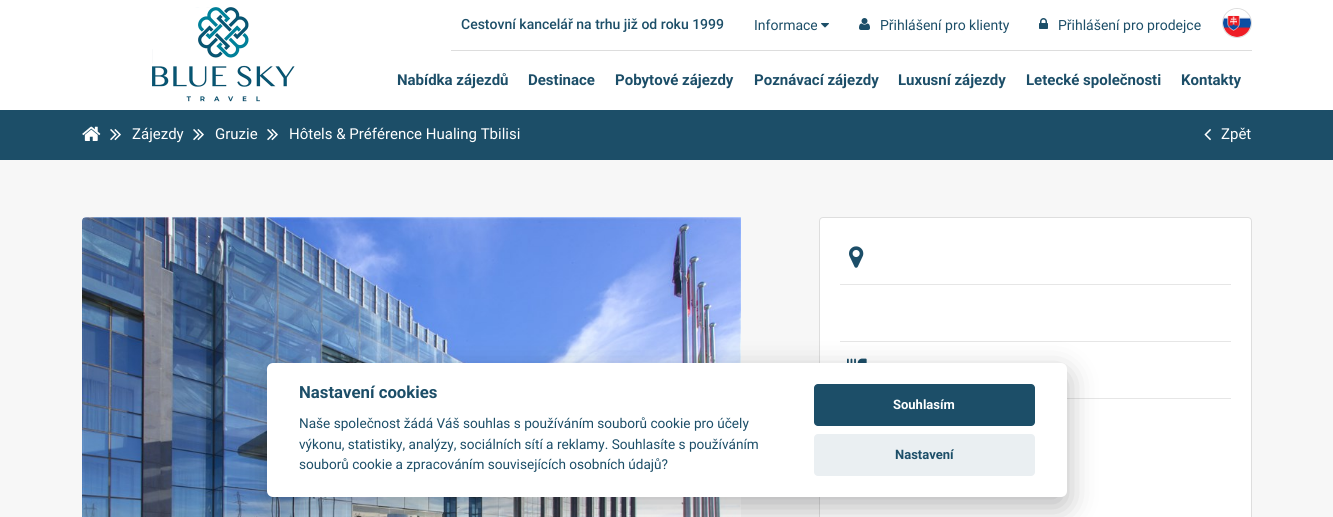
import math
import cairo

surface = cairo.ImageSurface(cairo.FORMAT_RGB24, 1333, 517)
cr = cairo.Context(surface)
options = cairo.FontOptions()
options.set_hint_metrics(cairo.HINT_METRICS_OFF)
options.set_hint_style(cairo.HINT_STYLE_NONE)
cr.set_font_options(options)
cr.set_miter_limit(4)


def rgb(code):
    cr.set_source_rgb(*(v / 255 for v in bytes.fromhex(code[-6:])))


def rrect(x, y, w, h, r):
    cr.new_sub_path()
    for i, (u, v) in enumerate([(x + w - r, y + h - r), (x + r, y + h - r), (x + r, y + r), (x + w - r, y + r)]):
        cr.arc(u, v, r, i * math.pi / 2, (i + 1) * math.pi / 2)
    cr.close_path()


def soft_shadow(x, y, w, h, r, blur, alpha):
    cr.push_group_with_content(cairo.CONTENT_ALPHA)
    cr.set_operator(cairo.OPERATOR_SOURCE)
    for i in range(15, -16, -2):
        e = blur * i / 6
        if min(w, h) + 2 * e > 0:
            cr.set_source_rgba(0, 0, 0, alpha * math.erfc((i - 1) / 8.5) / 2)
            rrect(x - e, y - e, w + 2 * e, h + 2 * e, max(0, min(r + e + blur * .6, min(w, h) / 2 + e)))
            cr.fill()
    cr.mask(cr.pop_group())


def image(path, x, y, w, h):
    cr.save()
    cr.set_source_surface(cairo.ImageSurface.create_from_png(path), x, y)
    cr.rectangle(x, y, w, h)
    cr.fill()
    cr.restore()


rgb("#ffffff")
cr.paint()
image("img/1.png", 152, 7, 143, 95)
rgb("#dddddd")
cr.rectangle(451, 50, 801, 1)
cr.fill()
image("img/2.png", 821, 23, 8, 5)
image("img/3.png", 859, 18, 11, 12)
image("img/4.png", 1039, 18, 9, 11)
cr.arc(1237, 23, 14.5, 0, 2 * math.pi)
cr.set_line_width(1)
cr.stroke()
image("img/5.png", 1223, 9, 28, 28)
rgb("#f7f7f7")
cr.rectangle(0, 160, 1333, 357)
cr.fill()
rgb("#1c4e68")
cr.rectangle(0, 110, 1333, 50)
cr.fill()
image("img/6.png", 82, 126, 19, 15)
image("img/7.png", 110, 129, 11, 12)
image("img/7.png", 193, 129, 11, 12)
image("img/7.png", 267, 129, 11, 12)
image("img/8.png", 1204, 129, 7, 12)
image("img/9.png", 82, 217, 659, 300)
rgb("#ffffff")
rrect(819.5, 217.5, 432, 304, 3.5)
cr.fill_preserve()
rgb("#dedede")
cr.stroke()
rgb("#e6e6e6")
cr.rectangle(840, 284, 391, 1)
cr.fill()
image("img/10.png", 849, 246, 15, 22)
cr.rectangle(840, 341, 391, 1)
cr.fill()
cr.rectangle(1067, 398, 164, 1)
cr.fill()
image("img/11.png", 847, 358, 20, 5)
rgb("#020203")
soft_shadow(267, 373, 800, 134, 6, 15, 0.28)
rgb("#ffffff")
rrect(267, 363, 800, 134, 6)
cr.fill()
rgb("#1c4e68")
rrect(814, 384, 221, 42, 4)
cr.fill()
rgb("#eaeff2")
rrect(814, 434, 221, 42, 4)
cr.fill()
cr.select_font_face("Roboto Medium")
cr.set_font_size(14)
rgb("#1c4e68")
cr.move_to(461, 29)
cr.show_text("Cestovní kancelář na trhu již od roku 1999")
cr.select_font_face("Roboto")
for x, y, s in [
    (754, 30, "Informace"),
    (880, 30, "Přihlášení pro klienty"),
    (1058, 30, "Přihlášení pro prodejce"),
]:
    cr.move_to(x, y)
    cr.show_text(s)
cr.select_font_face("Roboto", cairo.FONT_SLANT_NORMAL, cairo.FONT_WEIGHT_BOLD)
cr.set_font_size(15)
for x, y, s in [
    (397, 85, "Nabídka zájezdů"),
    (528, 85, "Destinace"),
    (615, 85, "Pobytové zájezdy"),
    (754, 85, "Poznávací zájezdy"),
    (898, 85, "Luxusní zájezdy"),
    (1026, 85, "Letecké společnosti"),
    (1181, 85, "Kontakty"),
]:
    cr.move_to(x, y)
    cr.show_text(s)
cr.select_font_face("Roboto")
rgb("#ffffff")
for x, y, s in [
    (132, 139, "Zájezdy"),
    (215, 139, "Gruzie"),
    (289, 139, "Hôtels & Préférence Hualing Tbilisi"),
    (1221, 139, "Zpět"),
]:
    cr.move_to(x, y)
    cr.show_text(s)
cr.select_font_face("Roboto", cairo.FONT_SLANT_NORMAL, cairo.FONT_WEIGHT_BOLD)
cr.set_font_size(16.75)
rgb("#1c4e68")
cr.move_to(299, 398)
cr.show_text("Nastavení cookies")
cr.select_font_face("Roboto")
cr.set_font_size(13.6)
for x, y, s in [
    (299, 428, "Naše společnost žádá Váš souhlas s používáním souborů cookie pro účely"),
    (299, 449, "výkonu, statistiky, analýzy, sociálních sítí a reklamy. Souhlasíte s používáním"),
    (299, 469, "souborů cookie a zpracováním souvisejících osobních údajů?"),
]:
    cr.move_to(x, y)
    cr.show_text(s)
cr.select_font_face("Roboto", cairo.FONT_SLANT_NORMAL, cairo.FONT_WEIGHT_BOLD)
cr.set_font_size(13)
rgb("#ffffff")
cr.move_to(893, 409)
cr.show_text("Souhlasím")
rgb("#1c4e68")
cr.move_to(895, 459)
cr.show_text("Nastavení")
surface.write_to_png("page.png")
